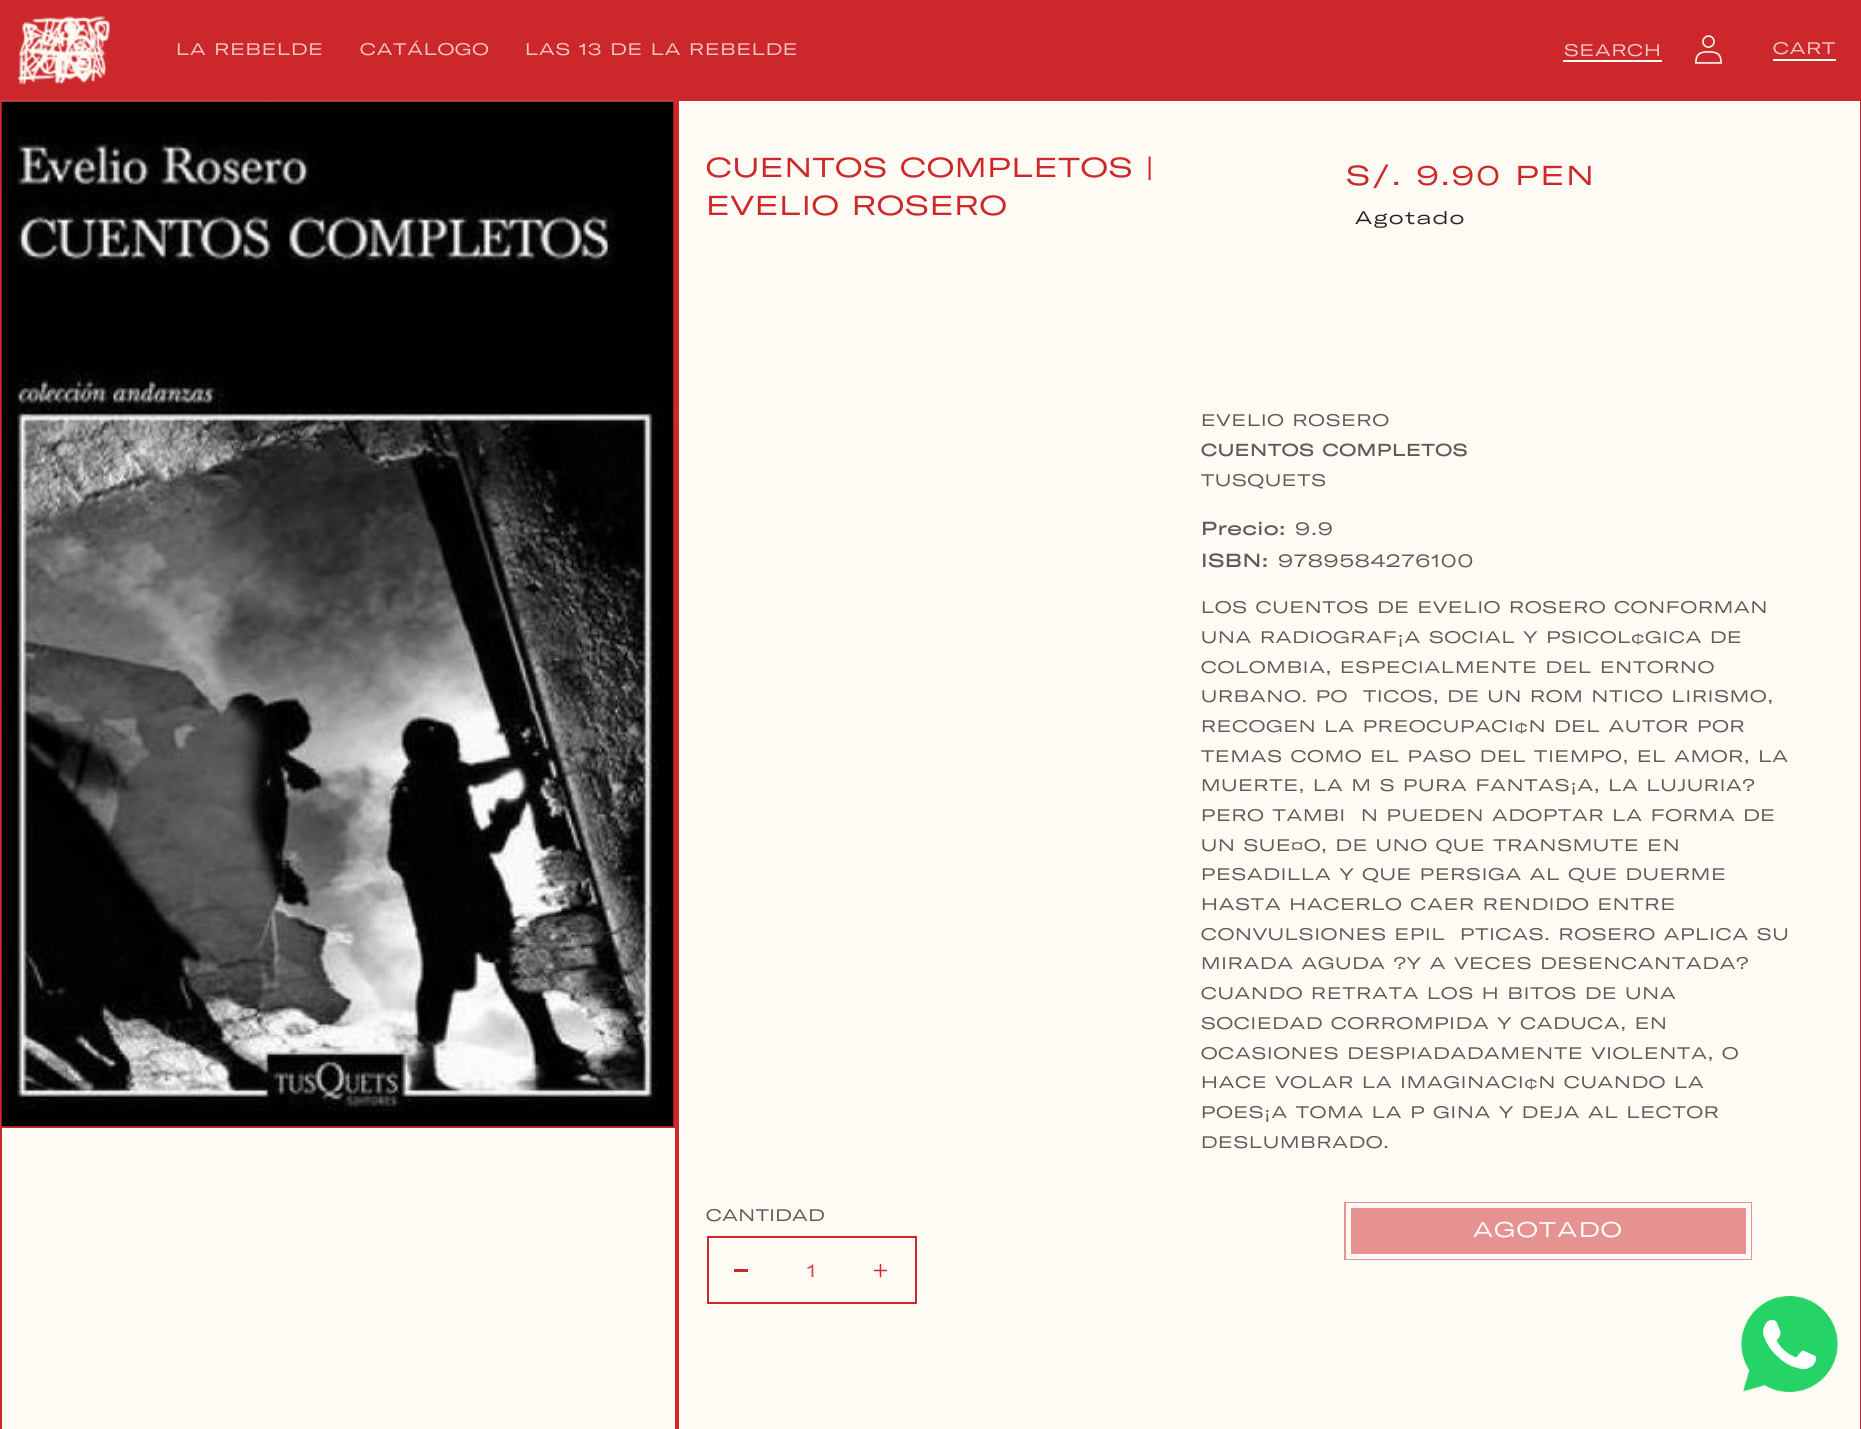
import math
import cairo

surface = cairo.ImageSurface(cairo.FORMAT_RGB24, 1861, 1429)
cr = cairo.Context(surface)
options = cairo.FontOptions()
options.set_hint_metrics(cairo.HINT_METRICS_OFF)
options.set_hint_style(cairo.HINT_STYLE_NONE)
cr.set_font_options(options)
cr.set_miter_limit(4)


def rgb(code):
    cr.set_source_rgb(*(v / 255 for v in bytes.fromhex(code[-6:])))


def tracked(x, y, s, letter, word):
    cr.move_to(x, y)
    for ch in s:
        cr.show_text(ch)
        cr.rel_move_to(letter + word * (ch == ' '), 0)


def image(path, x, y, w, h):
    cr.save()
    cr.set_source_surface(cairo.ImageSurface.create_from_png(path), x, y)
    cr.rectangle(x, y, w, h)
    cr.fill()
    cr.restore()


rgb("#fdfbf4")
cr.paint()
rgb("#cc282c")
cr.rectangle(0, 0, 1861, 99)
cr.fill()
image("img/1.png", 17, 16, 93, 69)
rgb("#fdfbf4")
cr.rectangle(1563, 60, 99, 2)
cr.fill()
image("img/2.png", 1695, 35, 27, 29)
cr.rectangle(1773, 59, 63, 2)
cr.fill()
cr.rectangle(1, 100, 675, 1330)
rgb("#cd282b")
cr.stroke()
image("img/3.png", 0, 100, 675, 1)
cr.rectangle(1, 102, 673, 1025)
cr.stroke()
image("img/4.png", 1, 102, 673, 1025)
cr.rectangle(678, 100, 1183, 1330)
cr.stroke()
cr.rectangle(708, 1237, 208, 66)
rgb("#ce282b")
cr.stroke()
cr.rectangle(734, 1269, 14, 3)
cr.fill()
image("img/5.png", 873, 1263, 15, 15)
cr.rectangle(1345, 1203, 406, 56)
rgb("#e69290")
cr.stroke()
cr.rectangle(1348.5, 1205.5, 400, 51)
cr.fill_preserve()
rgb("#fdfbf4")
cr.set_line_width(5)
cr.stroke()
image("img/6.png", 1741, 1296, 97, 96)
cr.select_font_face("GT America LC")
cr.set_font_size(16.5)
rgb("#f1c6c2")
for x, y, s in [
    (176, 55, "LA REBELDE"),
    (360, 55, "CATÁLOGO"),
    (525, 55, "LAS 13 DE LA REBELDE"),
    (1564, 56, "SEARCH"),
    (1773, 54, "CART"),
]:
    tracked(x, y, s, 0.9, 0)
cr.set_font_size(27)
rgb("#ce282b")
tracked(706, 177, "CUENTOS COMPLETOS |", 0.9, 0)
tracked(706, 215, "EVELIO ROSERO", 0.9, 0)
tracked(1346, 185, "S/. 9.90 PEN", 2, 0)
cr.set_font_size(18)
rgb("#2d2424")
tracked(1355, 224, "Agotado", 1.5, 0)
cr.set_font_size(16.5)
rgb("#615a58")
tracked(1201, 426, "EVELIO ROSERO", 0.9, 0)
cr.select_font_face("GT America LC", cairo.FONT_SLANT_NORMAL, cairo.FONT_WEIGHT_BOLD)
tracked(1201, 456, "CUENTOS COMPLETOS", 0.9, 0)
cr.select_font_face("GT America LC")
tracked(1201, 486, "TUSQUETS", 0.9, 0)
cr.select_font_face("GT America LC", cairo.FONT_SLANT_NORMAL, cairo.FONT_WEIGHT_BOLD)
cr.set_font_size(18)
tracked(1201, 535, "Precio:", 0.9, 0)
cr.select_font_face("GT America LC")
tracked(1295, 535, "9.9", 0.9, 0)
cr.select_font_face("GT America LC", cairo.FONT_SLANT_NORMAL, cairo.FONT_WEIGHT_BOLD)
tracked(1201, 567, "ISBN:", 0.9, 0)
cr.select_font_face("GT America LC")
tracked(1278, 567, "9789584276100", 0.9, 0)
cr.set_font_size(16.5)
for x, y, s in [
    (1201, 613, "LOS CUENTOS DE EVELIO ROSERO CONFORMAN"),
    (1201, 643, "UNA RADIOGRAF¡A SOCIAL Y PSICOL¢GICA DE"),
    (1201, 673, "COLOMBIA, ESPECIALMENTE DEL ENTORNO"),
    (1201, 702, "URBANO. PO"),
    (1363, 702, "TICOS, DE UN ROM NTICO LIRISMO,"),
    (1201, 732, "RECOGEN LA PREOCUPACI¢N DEL AUTOR POR"),
    (1201, 762, "TEMAS COMO EL PASO DEL TIEMPO, EL AMOR, LA"),
    (1201, 791, "MUERTE, LA M S PURA FANTAS¡A, LA LUJURIA?"),
    (1201, 821, "PERO TAMBI"),
    (1361, 821, "N PUEDEN ADOPTAR LA FORMA DE"),
    (1201, 851, "UN SUE¤O, DE UNO QUE TRANSMUTE EN"),
    (1201, 880, "PESADILLA Y QUE PERSIGA AL QUE DUERME"),
    (1201, 910, "HASTA HACERLO CAER RENDIDO ENTRE"),
    (1201, 940, "CONVULSIONES EPIL"),
    (1460, 940, "PTICAS. ROSERO APLICA SU"),
    (1201, 969, "MIRADA AGUDA ?Y A VECES DESENCANTADA?"),
    (1201, 999, "CUANDO RETRATA LOS H BITOS DE UNA"),
    (1201, 1029, "SOCIEDAD CORROMPIDA Y CADUCA, EN"),
    (1201, 1059, "OCASIONES DESPIADADAMENTE VIOLENTA, O"),
    (1201, 1088, "HACE VOLAR LA IMAGINACI¢N CUANDO LA"),
    (1201, 1118, "POES¡A TOMA LA P GINA Y DEJA AL LECTOR"),
    (1201, 1148, "DESLUMBRADO."),
]:
    tracked(x, y, s, 0.9, 0)
tracked(706, 1221, "CANTIDAD", 0.5, 0)
cr.set_font_size(18)
rgb("#d54849")
cr.move_to(807, 1277)
cr.show_text("1")
cr.set_font_size(21)
rgb("#fefdfa")
tracked(1473, 1237, "AGOTADO", 1.5, 0)
surface.write_to_png("page.png")
